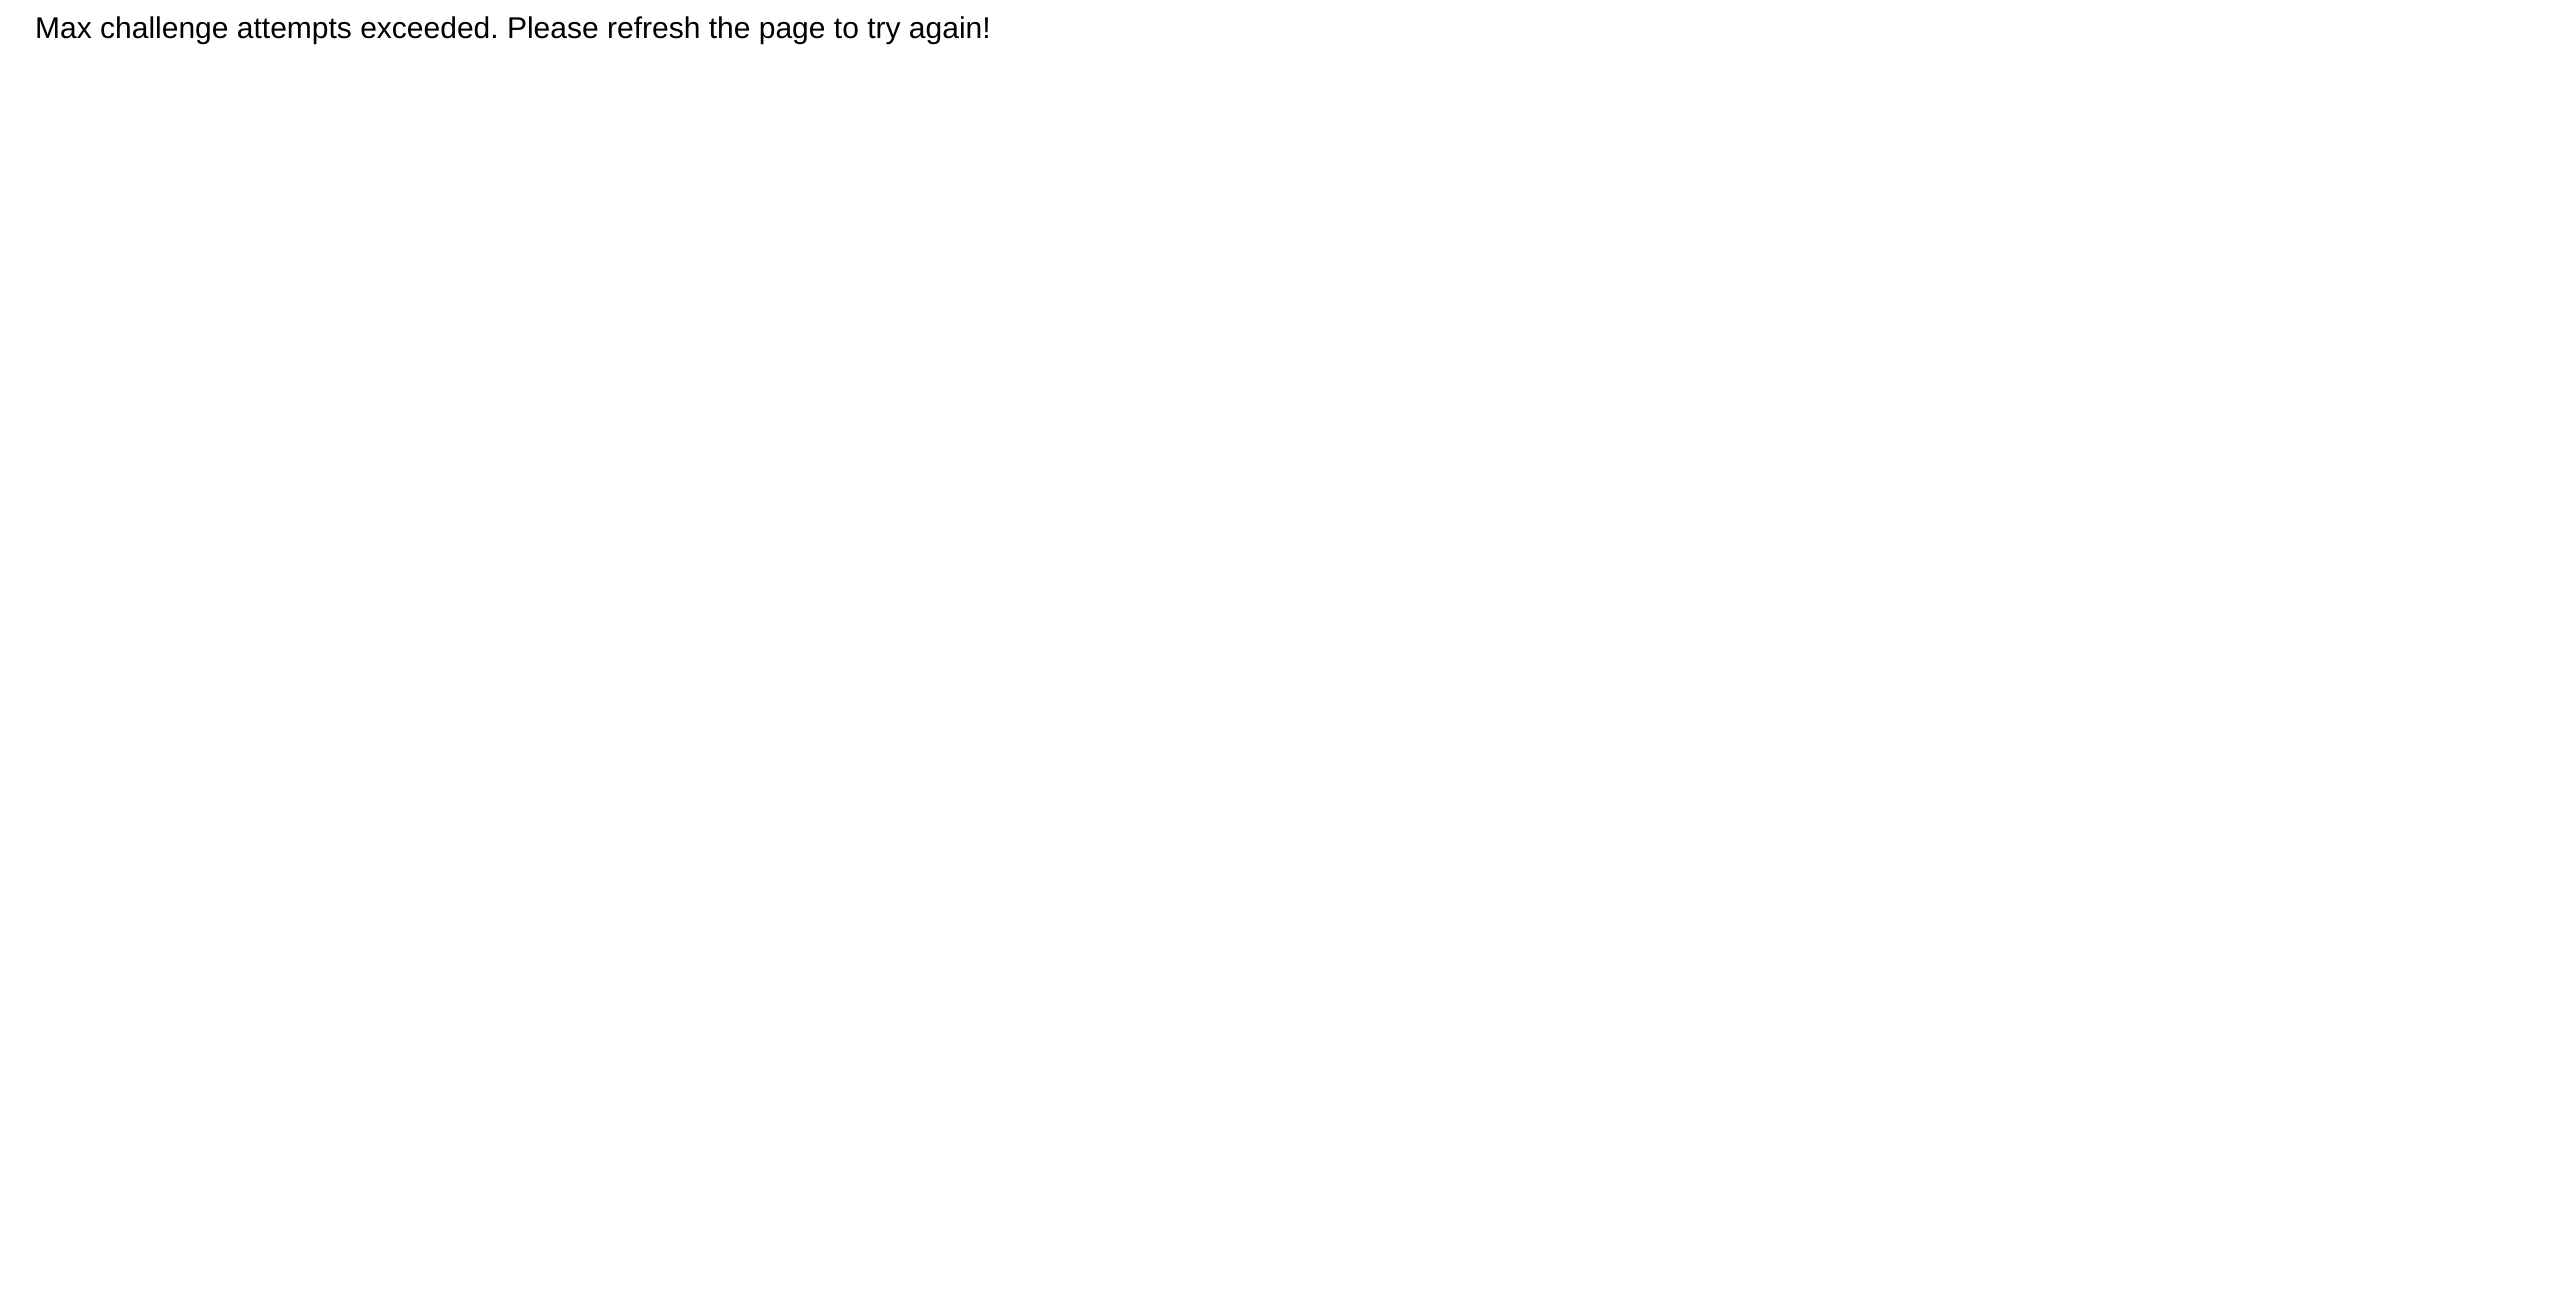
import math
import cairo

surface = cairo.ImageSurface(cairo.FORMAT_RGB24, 2564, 1312)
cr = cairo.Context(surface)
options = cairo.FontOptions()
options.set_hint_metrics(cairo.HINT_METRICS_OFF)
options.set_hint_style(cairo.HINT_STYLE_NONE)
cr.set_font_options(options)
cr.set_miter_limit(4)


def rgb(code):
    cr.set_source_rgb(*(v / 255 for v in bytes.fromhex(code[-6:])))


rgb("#ffffff")
cr.paint()
cr.select_font_face("Liberation Sans")
cr.set_font_size(30)
rgb("#000000")
cr.move_to(35, 38)
cr.show_text("Max challenge attempts exceeded. Please refresh the page to try again!")
surface.write_to_png("page.png")
